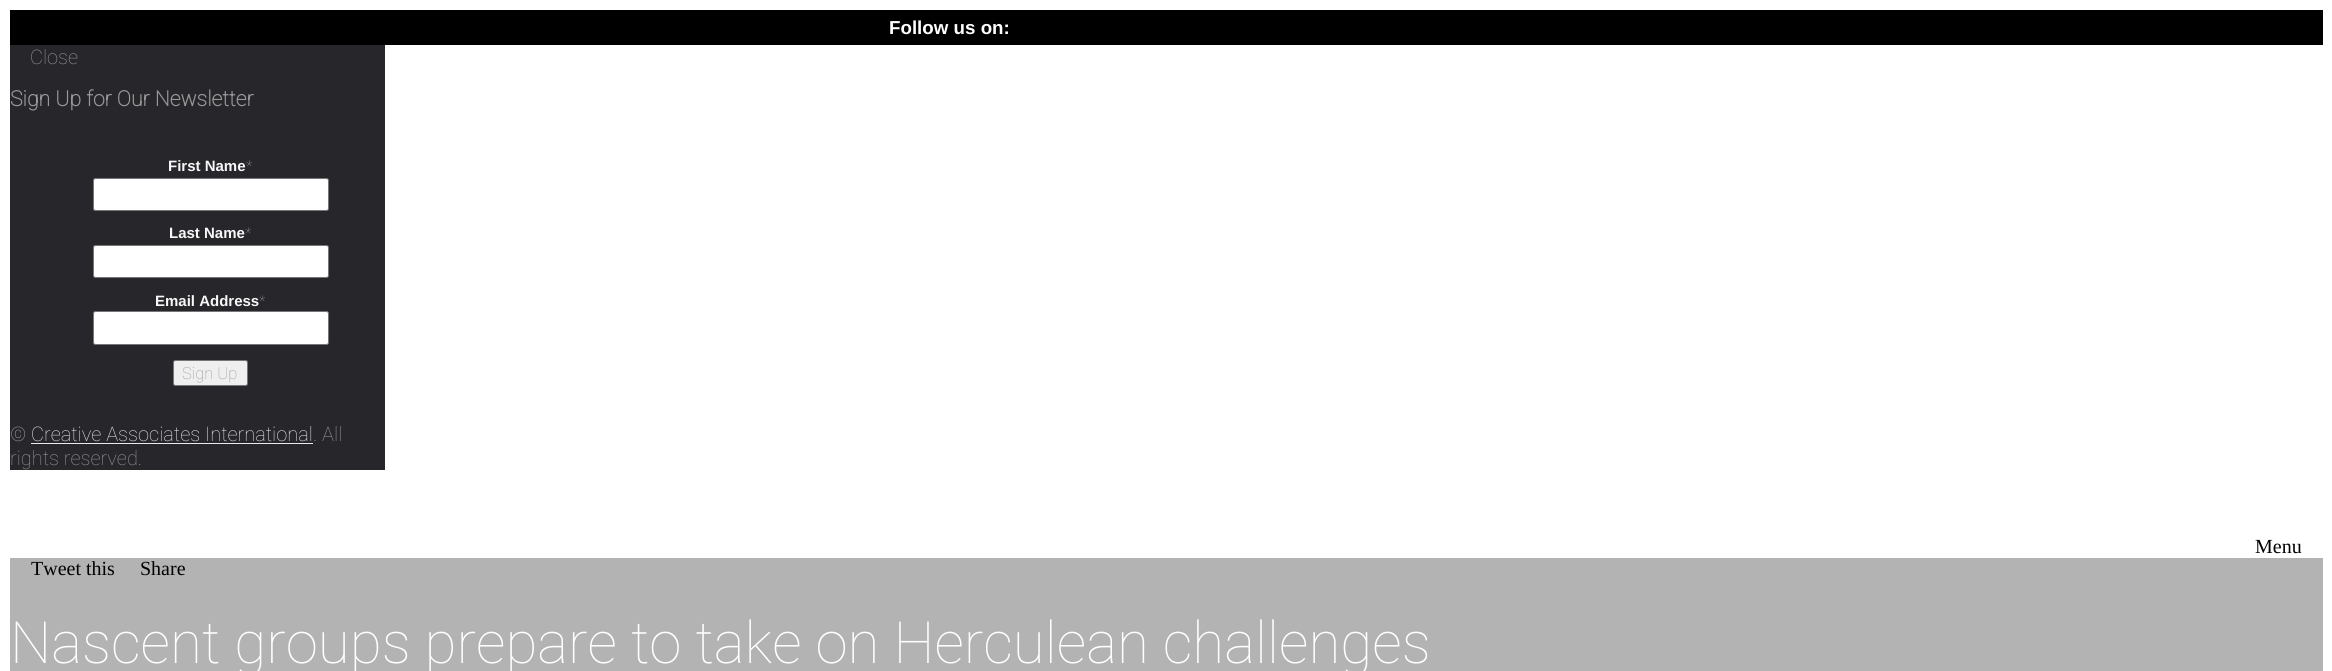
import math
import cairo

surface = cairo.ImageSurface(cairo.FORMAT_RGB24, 2332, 671)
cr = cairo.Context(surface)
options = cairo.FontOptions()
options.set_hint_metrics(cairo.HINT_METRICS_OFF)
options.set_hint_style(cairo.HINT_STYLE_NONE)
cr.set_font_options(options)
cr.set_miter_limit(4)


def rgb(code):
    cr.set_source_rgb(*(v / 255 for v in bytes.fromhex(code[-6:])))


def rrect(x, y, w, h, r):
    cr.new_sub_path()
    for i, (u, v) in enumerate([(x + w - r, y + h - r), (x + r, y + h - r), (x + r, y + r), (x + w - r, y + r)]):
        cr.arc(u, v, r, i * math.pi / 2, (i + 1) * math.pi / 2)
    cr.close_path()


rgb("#ffffff")
cr.paint()
rgb("#000000")
cr.rectangle(10, 10, 2313, 35)
cr.fill()
rgb("#27262b")
cr.rectangle(10, 45, 375, 425)
cr.fill()
rgb("#ffffff")
rrect(93.5, 178.5, 235, 32, 2)
cr.fill_preserve()
rgb("#767676")
cr.set_line_width(1)
cr.stroke()
rgb("#ffffff")
rrect(93.5, 245.5, 235, 32, 2)
cr.fill_preserve()
rgb("#767676")
cr.stroke()
rgb("#ffffff")
rrect(93.5, 311.5, 235, 33, 2)
cr.fill_preserve()
rgb("#767676")
cr.stroke()
rgb("#efefef")
rrect(173.5, 360.5, 74, 25, 2)
cr.fill_preserve()
rgb("#767676")
cr.stroke()
rgb("#eaeaea")
cr.rectangle(31, 443, 282, 1)
cr.fill()
rgb("#b3b3b3")
cr.rectangle(10, 558, 2313, 113)
cr.fill()
cr.select_font_face("Liberation Sans", cairo.FONT_SLANT_NORMAL, cairo.FONT_WEIGHT_BOLD)
cr.set_font_size(18.75)
rgb("#ffffff")
cr.move_to(889, 34)
cr.show_text("Follow us on:")
cr.select_font_face("Roboto Thin")
cr.set_font_size(20)
rgb("#999999")
cr.move_to(30, 64)
cr.show_text("Close")
cr.select_font_face("Roboto", cairo.FONT_SLANT_NORMAL, cairo.FONT_WEIGHT_BOLD)
cr.set_font_size(21.25)
cr.move_to(10, 106)
cr.show_text("Sign Up for Our Newsletter")
cr.select_font_face("Liberation Sans", cairo.FONT_SLANT_NORMAL, cairo.FONT_WEIGHT_BOLD)
cr.set_font_size(15)
rgb("#f7f7f7")
cr.move_to(168, 171)
cr.show_text("First Name")
cr.select_font_face("Roboto Thin")
rgb("#999999")
cr.move_to(246, 171)
cr.show_text("*")
cr.select_font_face("Liberation Sans", cairo.FONT_SLANT_NORMAL, cairo.FONT_WEIGHT_BOLD)
rgb("#f7f7f7")
cr.move_to(169, 238)
cr.show_text("Last Name")
cr.select_font_face("Roboto Thin")
rgb("#999999")
cr.move_to(245, 238)
cr.show_text("*")
cr.select_font_face("Liberation Sans", cairo.FONT_SLANT_NORMAL, cairo.FONT_WEIGHT_BOLD)
rgb("#f7f7f7")
cr.move_to(155, 306)
cr.show_text("Email Address")
cr.select_font_face("Roboto Thin")
rgb("#999999")
cr.move_to(259, 306)
cr.show_text("*")
cr.set_font_size(16.5)
cr.move_to(182, 379)
cr.show_text("Sign Up")
cr.set_font_size(20)
cr.move_to(10, 441)
cr.show_text("©")
rgb("#eaeaea")
cr.move_to(31, 441)
cr.show_text("Creative Associates International")
rgb("#999999")
cr.move_to(313, 441)
cr.show_text(". All")
cr.move_to(10, 465)
cr.show_text("rights reserved.")
cr.select_font_face("Liberation Serif")
rgb("#000000")
for x, y, s in [
    (2255, 553, "Menu"),
    (31, 575, "Tweet this"),
    (140, 575, "Share"),
]:
    cr.move_to(x, y)
    cr.show_text(s)
cr.select_font_face("Roboto Thin")
cr.set_font_size(58.3)
rgb("#ffffff")
cr.move_to(10, 663)
cr.show_text("Nascent groups prepare to take on Herculean challenges")
surface.write_to_png("page.png")
